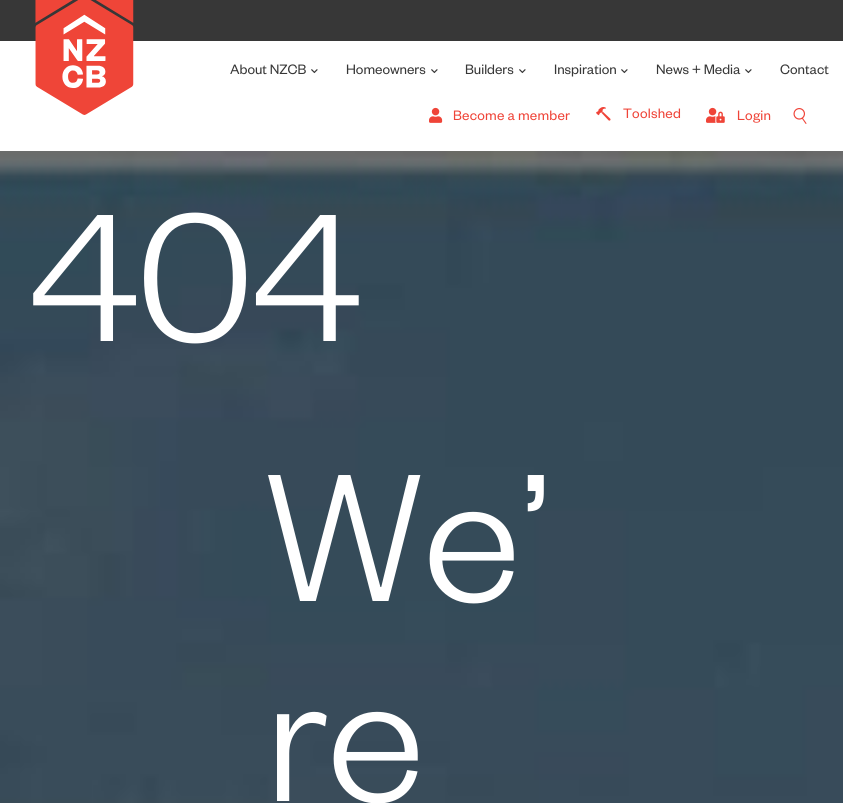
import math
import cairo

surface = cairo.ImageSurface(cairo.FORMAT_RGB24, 843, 803)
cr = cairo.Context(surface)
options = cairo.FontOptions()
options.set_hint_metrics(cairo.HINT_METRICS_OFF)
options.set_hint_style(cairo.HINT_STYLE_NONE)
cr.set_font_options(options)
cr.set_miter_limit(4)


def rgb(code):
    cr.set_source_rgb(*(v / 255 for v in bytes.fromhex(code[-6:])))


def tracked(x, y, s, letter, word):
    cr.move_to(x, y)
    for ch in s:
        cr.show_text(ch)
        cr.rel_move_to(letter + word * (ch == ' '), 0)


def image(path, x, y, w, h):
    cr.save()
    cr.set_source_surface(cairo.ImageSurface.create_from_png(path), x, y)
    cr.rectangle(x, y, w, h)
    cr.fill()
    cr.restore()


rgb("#ffffff")
cr.paint()
rgb("#373737")
cr.rectangle(0, 0, 843, 41)
cr.fill()
image("img/1.png", 35, 0, 99, 115)
image("img/2.png", 311, 69, 7, 5)
image("img/2.png", 431, 69, 7, 5)
image("img/2.png", 519, 69, 7, 5)
image("img/2.png", 621, 69, 7, 5)
image("img/2.png", 745, 69, 7, 5)
image("img/3.png", 429, 107, 14, 16)
image("img/4.png", 596, 107, 15, 14)
image("img/5.png", 706, 107, 19, 16)
image("img/6.png", 793, 108, 14, 16)
image("img/7.png", 0, 151, 843, 652)
cr.select_font_face("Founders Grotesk")
cr.set_font_size(15)
for x, y, s in [
    (230, 74, "About NZCB"),
    (346, 74, "Homeowners"),
    (465, 74, "Builders"),
    (554, 74, "Inspiration"),
    (656, 74, "News + Media"),
    (780, 74, "Contact"),
]:
    cr.move_to(x, y)
    cr.show_text(s)
rgb("#ef4438")
for x, y, s in [
    (453, 120, "Become a member"),
    (623, 118, "Toolshed"),
    (737, 120, "Login"),
]:
    tracked(x, y, s, 0.25, 0)
cr.select_font_face("Founders Grotesk Light")
cr.set_font_size(200)
rgb("#ffffff")
for x, y, s in [
    (30, 341, "404"),
    (265, 601, "We’"),
    (265, 801, "re"),
]:
    cr.move_to(x, y)
    cr.show_text(s)
surface.write_to_png("page.png")
